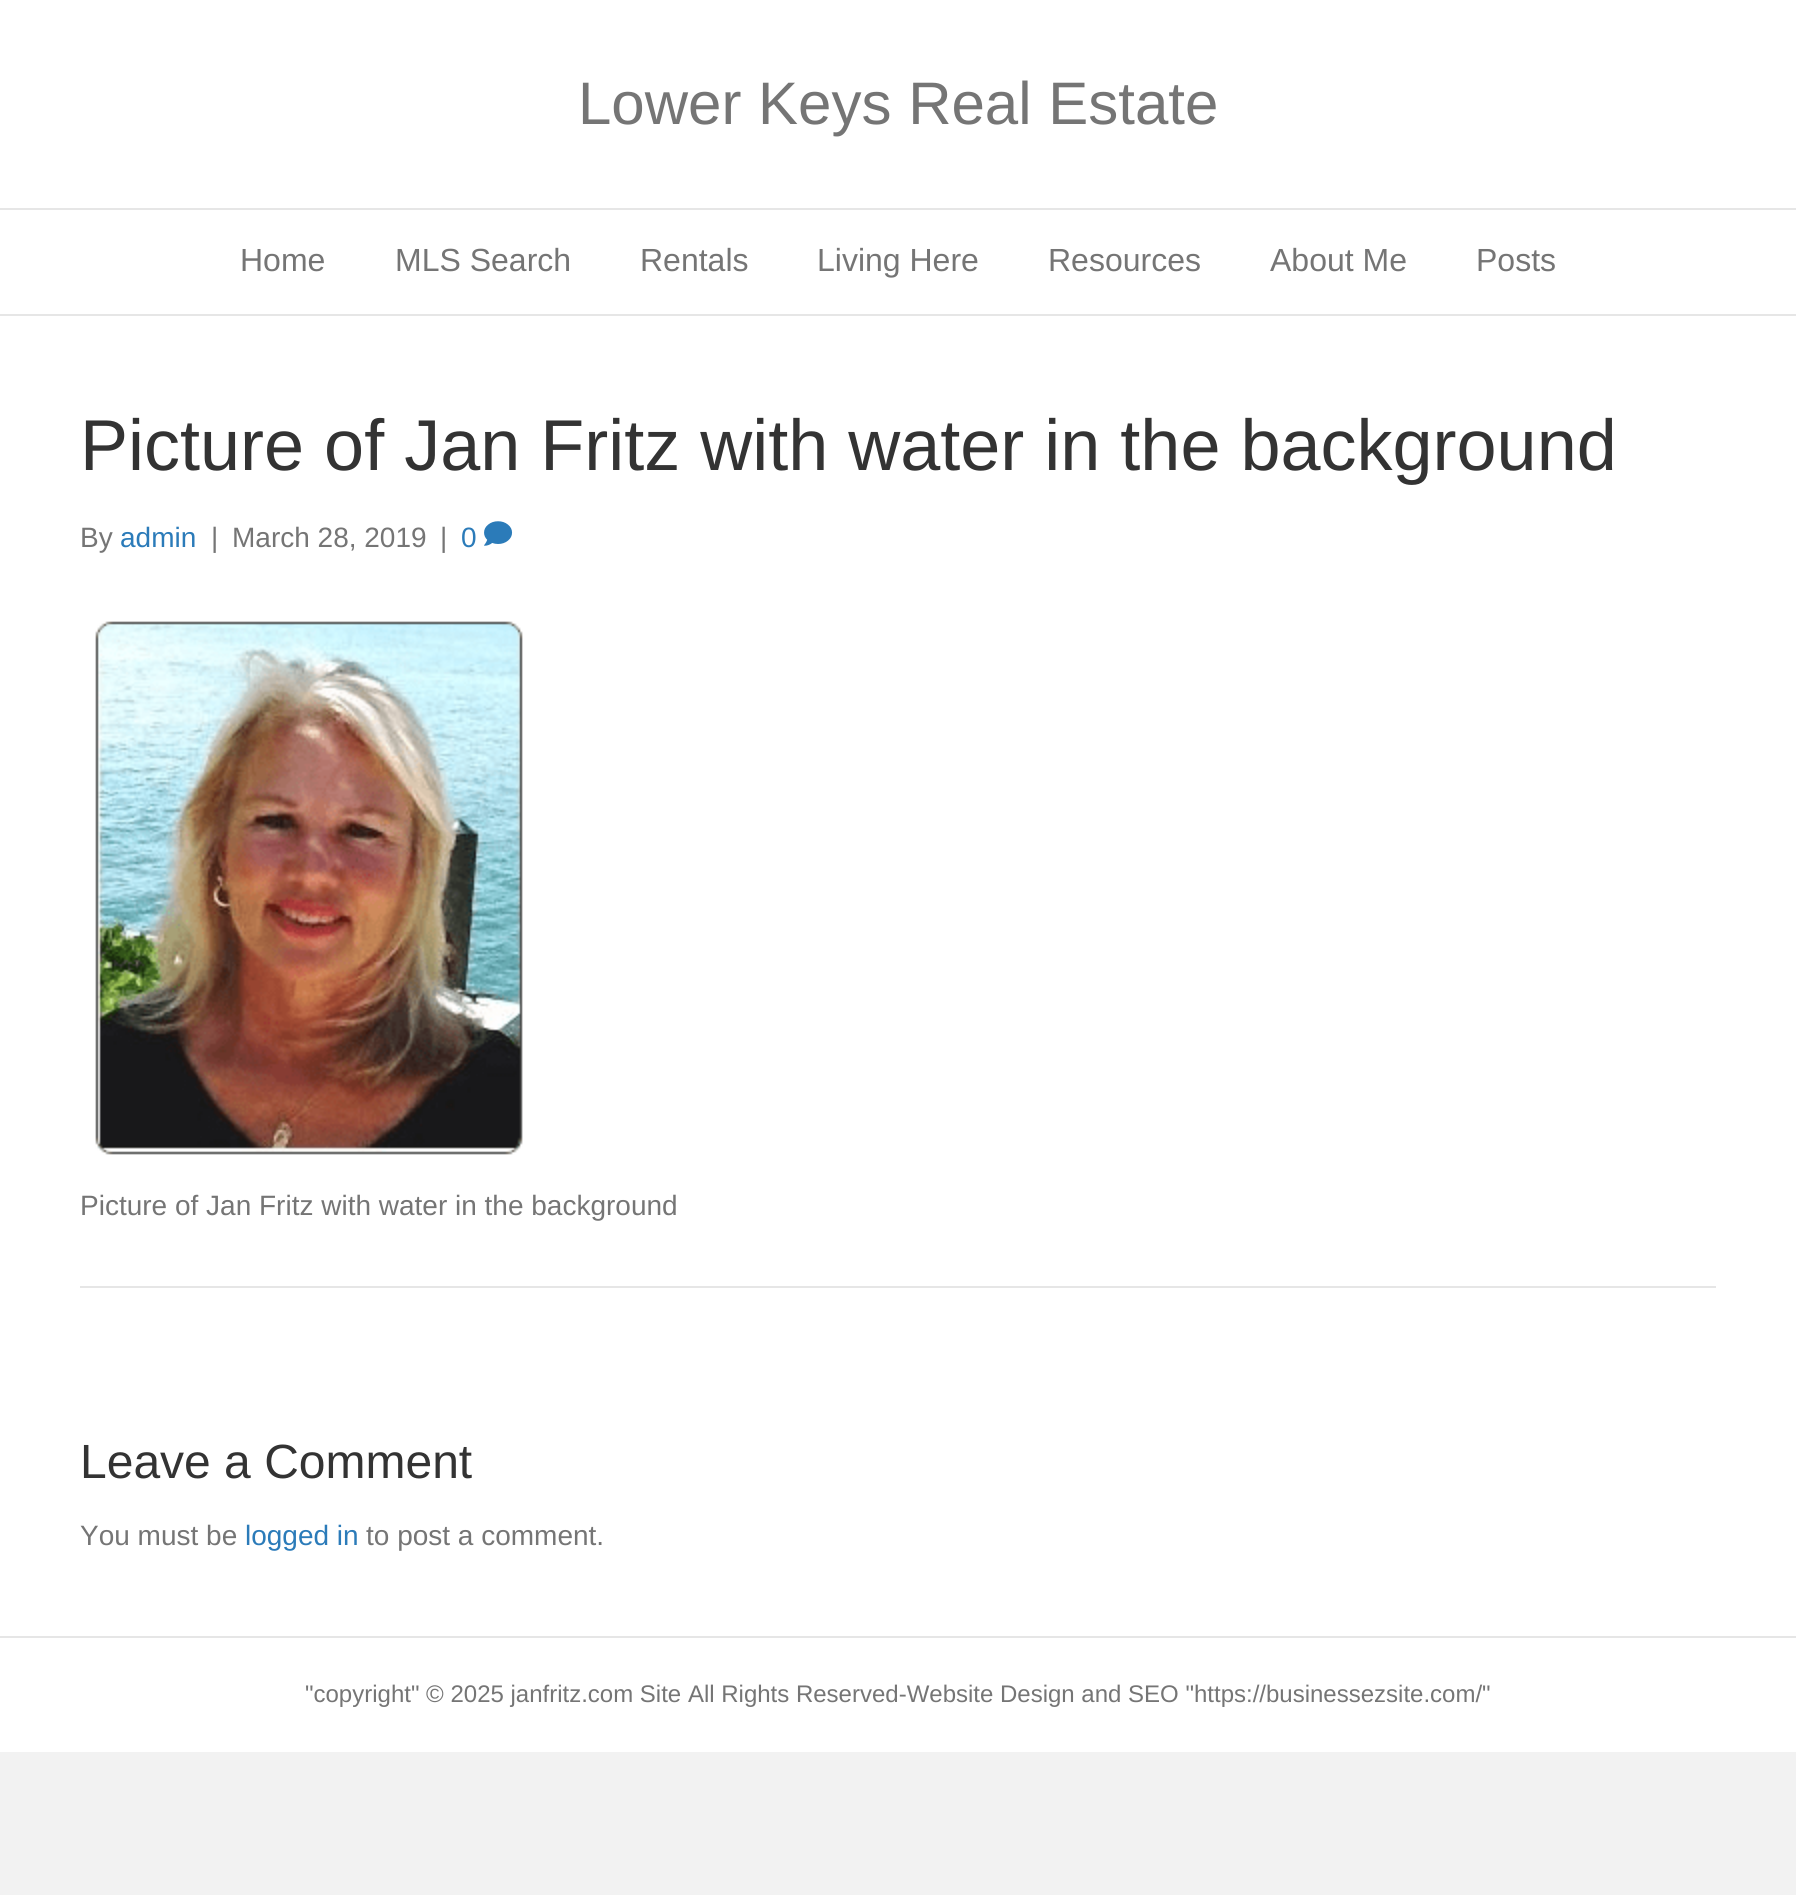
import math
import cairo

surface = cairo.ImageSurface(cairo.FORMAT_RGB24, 1796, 1895)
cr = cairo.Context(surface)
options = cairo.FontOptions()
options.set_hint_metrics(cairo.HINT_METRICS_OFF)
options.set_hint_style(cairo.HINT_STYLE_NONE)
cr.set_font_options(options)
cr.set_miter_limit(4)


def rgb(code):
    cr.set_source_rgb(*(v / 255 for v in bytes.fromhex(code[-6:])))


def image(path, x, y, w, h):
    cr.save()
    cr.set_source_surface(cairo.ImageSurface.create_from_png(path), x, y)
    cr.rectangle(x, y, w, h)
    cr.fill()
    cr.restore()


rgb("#f2f2f2")
cr.paint()
for x, y, w, h, color in [
    (0, 0, 1796, 314, "#ffffff"),
    (0, 208, 1796, 2, "#e6e6e6"),
    (0, 314, 1796, 2, "#e6e6e6"),
    (0, 316, 1796, 1320, "#ffffff"),
]:
    rgb(color)
    cr.rectangle(x, y, w, h)
    cr.fill()
image("img/1.png", 484, 521, 29, 25)
image("img/2.png", 95, 621, 428, 534)
for x, y, w, h, color in [
    (80, 1286, 1636, 2, "#e6e6e6"),
    (0, 1638, 1796, 114, "#ffffff"),
    (0, 1636, 1796, 2, "#e6e6e6"),
]:
    rgb(color)
    cr.rectangle(x, y, w, h)
    cr.fill()
cr.select_font_face("Liberation Sans")
cr.set_font_size(60)
rgb("#757575")
cr.move_to(578, 124)
cr.show_text("Lower Keys Real Estate")
cr.set_font_size(32)
for x, y, s in [
    (240, 271, "Home"),
    (395, 271, "MLS Search"),
    (640, 271, "Rentals"),
    (817, 271, "Living Here"),
    (1048, 271, "Resources"),
    (1270, 271, "About Me"),
    (1476, 271, "Posts"),
]:
    cr.move_to(x, y)
    cr.show_text(s)
cr.set_font_size(72)
rgb("#333333")
cr.move_to(80, 470)
cr.show_text("Picture of Jan Fritz with water in the background")
cr.set_font_size(28)
rgb("#757575")
cr.move_to(80, 547)
cr.show_text("By")
rgb("#2b7bb9")
cr.move_to(120, 547)
cr.show_text("admin")
rgb("#757575")
for x, y, s in [
    (211, 547, "|"),
    (232, 547, "March 28, 2019"),
    (440, 547, "|"),
]:
    cr.move_to(x, y)
    cr.show_text(s)
rgb("#2b7bb9")
cr.move_to(461, 547)
cr.show_text("0")
rgb("#757575")
cr.move_to(80, 1215)
cr.show_text("Picture of Jan Fritz with water in the background")
cr.set_font_size(48)
rgb("#333333")
cr.move_to(80, 1478)
cr.show_text("Leave a Comment")
cr.set_font_size(28)
rgb("#757575")
cr.move_to(80, 1545)
cr.show_text("You must be")
rgb("#2b7bb9")
cr.move_to(245, 1545)
cr.show_text("logged in")
rgb("#757575")
cr.move_to(366, 1545)
cr.show_text("to post a comment.")
cr.set_font_size(24)
cr.move_to(305, 1702)
cr.show_text("\"copyright\" © 2025 janfritz.com Site All Rights Reserved-Website Design and SEO \"https://businessezsite.com/\"")
surface.write_to_png("page.png")
